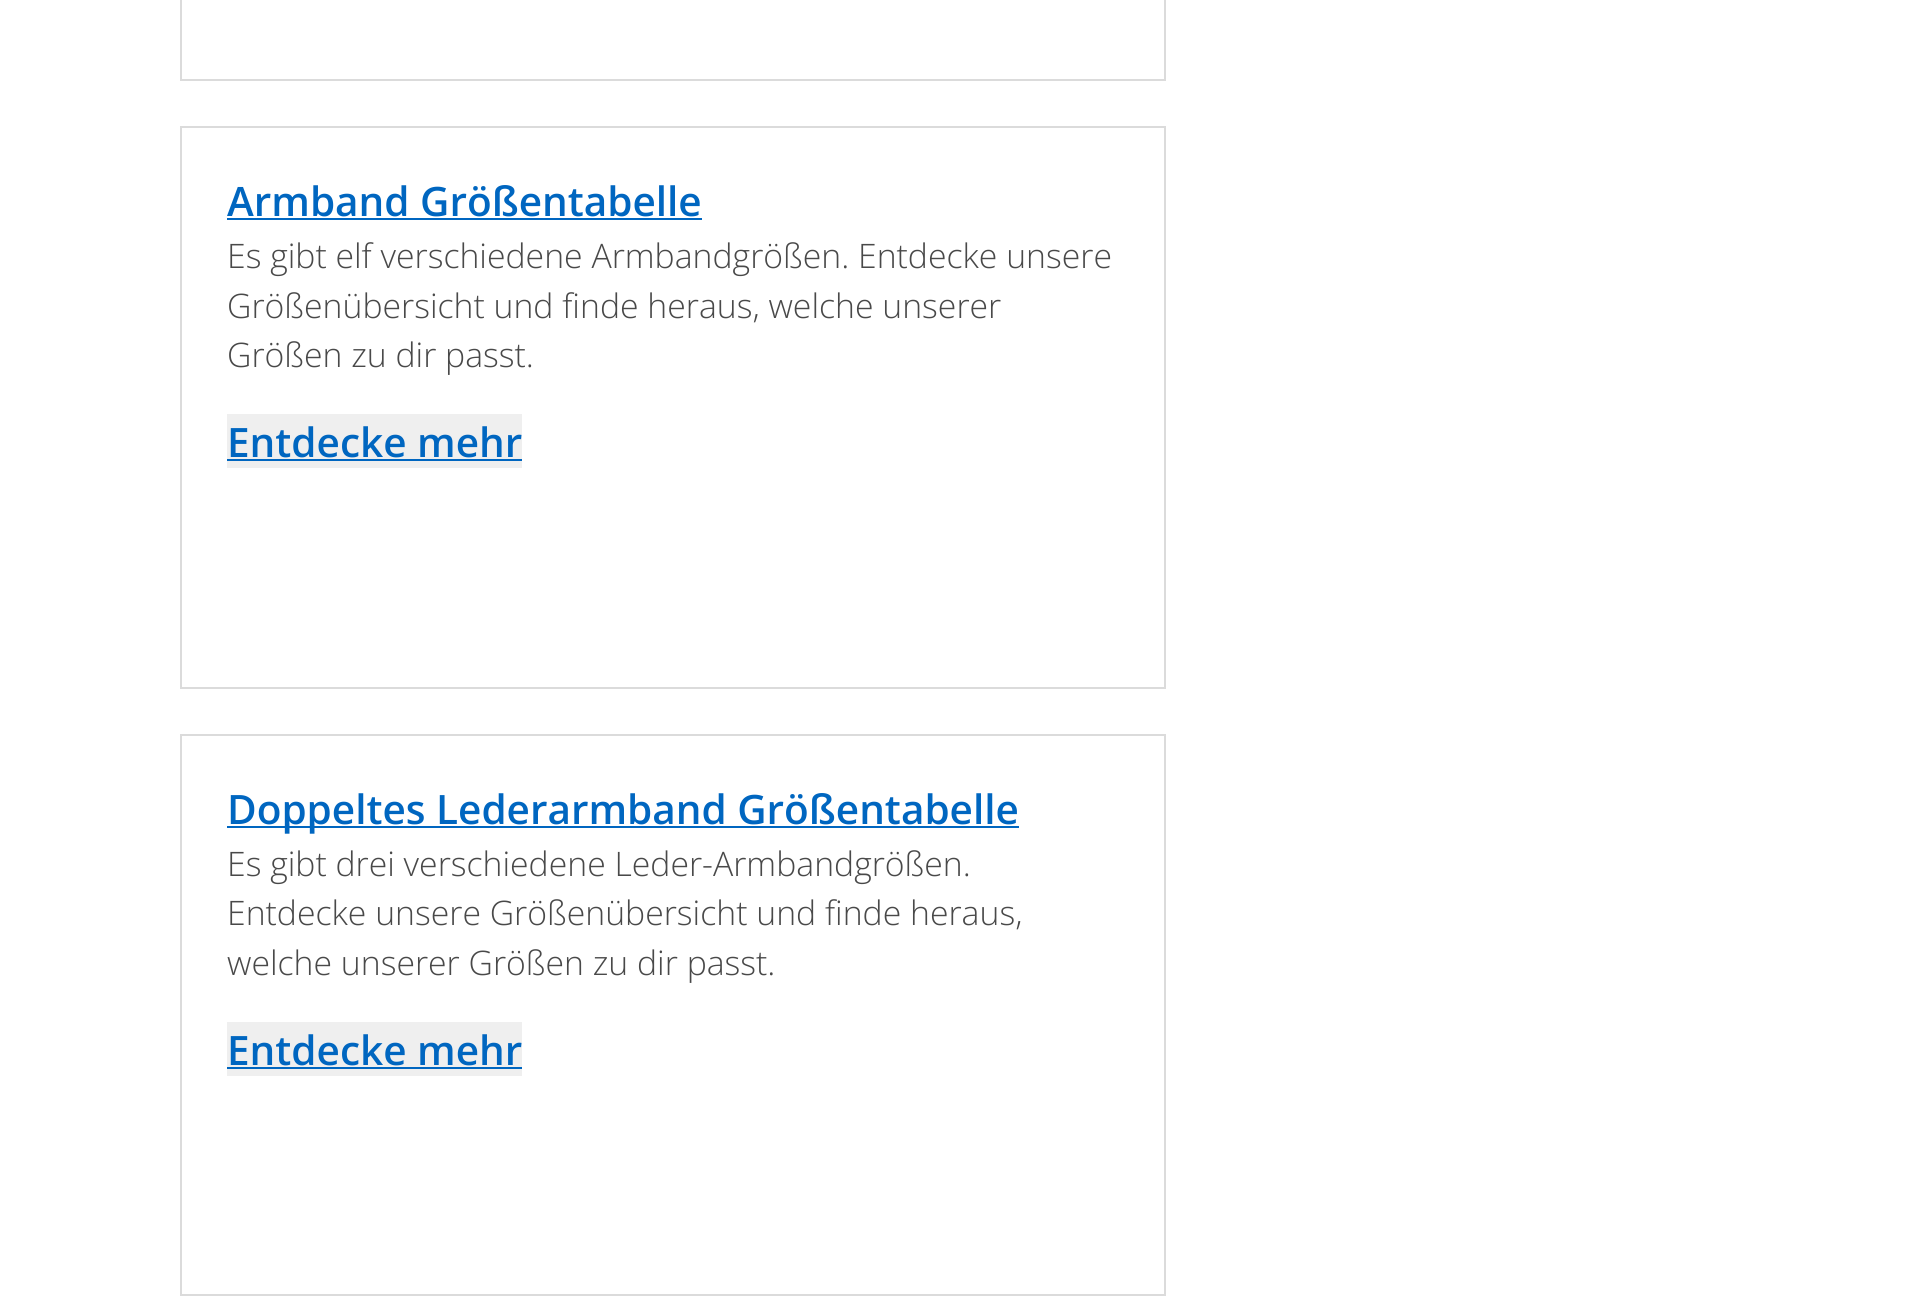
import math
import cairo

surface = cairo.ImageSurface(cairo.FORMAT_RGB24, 1912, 1309)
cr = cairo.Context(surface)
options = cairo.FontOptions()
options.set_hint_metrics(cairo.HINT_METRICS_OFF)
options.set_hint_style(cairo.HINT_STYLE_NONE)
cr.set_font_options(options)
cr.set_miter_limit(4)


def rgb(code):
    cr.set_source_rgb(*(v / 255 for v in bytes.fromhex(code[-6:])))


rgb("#ffffff")
cr.paint()
cr.rectangle(181, -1, 984, 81)
rgb("#dbdbdb")
cr.stroke()
cr.rectangle(181, 127, 984, 561)
cr.stroke()
for x, y, w, h, color in [
    (227, 218, 475, 2, "#0066c0"),
    (227, 414, 295, 54, "#efefef"),
    (227, 459, 295, 2, "#0066c0"),
]:
    rgb(color)
    cr.rectangle(x, y, w, h)
    cr.fill()
cr.rectangle(181, 735, 984, 560)
rgb("#dbdbdb")
cr.stroke()
for x, y, w, h, color in [
    (227, 826, 792, 2, "#0066c0"),
    (227, 1022, 295, 54, "#efefef"),
    (227, 1067, 295, 2, "#0066c0"),
]:
    rgb(color)
    cr.rectangle(x, y, w, h)
    cr.fill()
cr.select_font_face("Open Sans SemiBold")
cr.set_font_size(40.5)
cr.move_to(227, 216)
cr.show_text("Armband Größentabelle")
cr.select_font_face("Open Sans Light")
cr.set_font_size(33.75)
rgb("#494949")
for x, y, s in [
    (227, 268, "Es gibt elf verschiedene Armbandgrößen. Entdecke unsere"),
    (227, 318, "Größenübersicht und finde heraus, welche unserer"),
    (227, 367, "Größen zu dir passt."),
]:
    cr.move_to(x, y)
    cr.show_text(s)
cr.select_font_face("Open Sans SemiBold")
cr.set_font_size(40.5)
rgb("#0066c0")
cr.move_to(227, 457)
cr.show_text("Entdecke mehr")
cr.move_to(227, 824)
cr.show_text("Doppeltes Lederarmband Größentabelle")
cr.select_font_face("Open Sans Light")
cr.set_font_size(33.75)
rgb("#494949")
for x, y, s in [
    (227, 876, "Es gibt drei verschiedene Leder-Armbandgrößen."),
    (227, 925, "Entdecke unsere Größenübersicht und finde heraus,"),
    (227, 975, "welche unserer Größen zu dir passt."),
]:
    cr.move_to(x, y)
    cr.show_text(s)
cr.select_font_face("Open Sans SemiBold")
cr.set_font_size(40.5)
rgb("#0066c0")
cr.move_to(227, 1065)
cr.show_text("Entdecke mehr")
surface.write_to_png("page.png")
